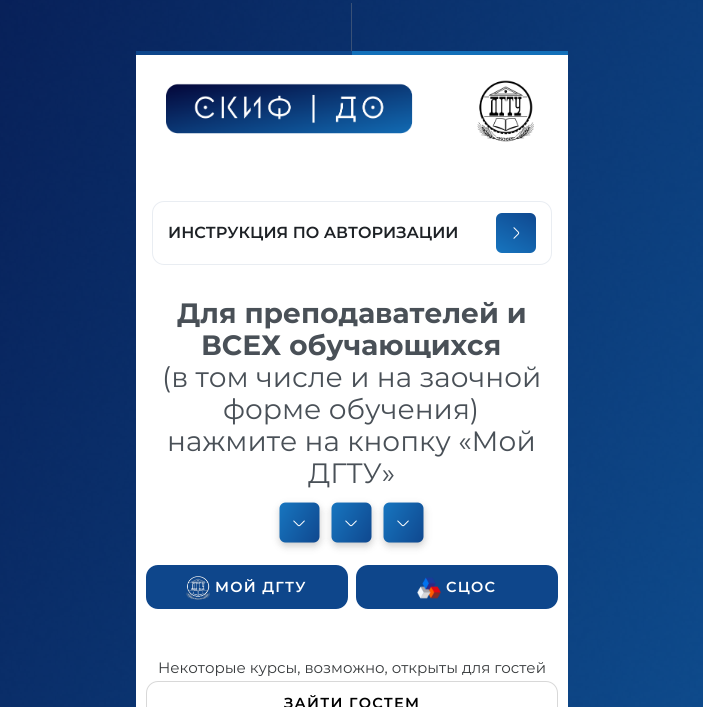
import math
import cairo

surface = cairo.ImageSurface(cairo.FORMAT_RGB24, 703, 707)
cr = cairo.Context(surface)
options = cairo.FontOptions()
options.set_hint_metrics(cairo.HINT_METRICS_OFF)
options.set_hint_style(cairo.HINT_STYLE_NONE)
cr.set_font_options(options)
cr.set_miter_limit(4)


def rgb(code):
    cr.set_source_rgb(*(v / 255 for v in bytes.fromhex(code[-6:])))


def tracked(x, y, s, letter, word):
    cr.move_to(x, y)
    for ch in s:
        cr.show_text(ch)
        cr.rel_move_to(letter + word * (ch == ' '), 0)


def rrect(x, y, w, h, r):
    cr.new_sub_path()
    for i, (u, v) in enumerate([(x + w - r, y + h - r), (x + r, y + h - r), (x + r, y + r), (x + w - r, y + r)]):
        cr.arc(u, v, r, i * math.pi / 2, (i + 1) * math.pi / 2)
    cr.close_path()


def soft_shadow(x, y, w, h, r, blur, alpha):
    cr.push_group_with_content(cairo.CONTENT_ALPHA)
    cr.set_operator(cairo.OPERATOR_SOURCE)
    for i in range(15, -16, -2):
        e = blur * i / 6
        if min(w, h) + 2 * e > 0:
            cr.set_source_rgba(0, 0, 0, alpha * math.erfc((i - 1) / 8.5) / 2)
            rrect(x - e, y - e, w + 2 * e, h + 2 * e, max(0, min(r + e + blur * .6, min(w, h) / 2 + e)))
            cr.fill()
    cr.mask(cr.pop_group())


def image(path, x, y, w, h):
    cr.save()
    cr.set_source_surface(cairo.ImageSurface.create_from_png(path), x, y)
    cr.rectangle(x, y, w, h)
    cr.fill()
    cr.restore()


rgb("#ffffff")
cr.paint()
image("img/1.png", 0, 0, 703, 707)
for x, y, w, h, color in [
    (136, 55, 432, 652, "#ffffff"),
    (351, 3, 1, 48, "#395177"),
    (136, 51, 216, 4, "#0e468b"),
    (352, 51, 216, 4, "#1370b9"),
]:
    rgb(color)
    cr.rectangle(x, y, w, h)
    cr.fill()
image("img/2.png", 166, 80, 368, 62)
rrect(152.5, 201.5, 399, 63, 11.5)
rgb("#e9edf2")
cr.set_line_width(1)
cr.stroke()
gradient = cairo.LinearGradient(529, 209, 503, 257)
gradient.add_color_stop_rgba(0, 0.059, 0.282, 0.561, 1)
gradient.add_color_stop_rgba(1, 0.09, 0.459, 0.749, 1)
cr.set_source(gradient)
rrect(496, 213, 40, 40, 6)
cr.fill()
image("img/3.png", 513, 227, 7, 12)
rgb("#000000")
soft_shadow(280, 506, 40, 40, 6, 4, 0.2)
image("img/4.png", 279, 502, 41, 41)
image("img/5.png", 293, 520, 12, 7)
soft_shadow(332, 506, 40, 40, 6, 4, 0.2)
image("img/6.png", 331, 502, 41, 41)
image("img/5.png", 345, 520, 12, 7)
soft_shadow(384, 506, 40, 40, 6, 4, 0.2)
image("img/6.png", 383, 502, 41, 41)
image("img/5.png", 397, 520, 12, 7)
rgb("#0e468b")
rrect(146, 565, 202, 44, 12)
cr.fill()
image("img/7.png", 186, 576, 24, 24)
rrect(356, 565, 202, 44, 12)
cr.fill()
image("img/8.png", 417, 577, 24, 22)
rrect(146.5, 681.5, 411, 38, 11.5)
rgb("#d8d8d8")
cr.stroke()
cr.select_font_face("Montserrat SemiBold")
cr.set_font_size(16)
rgb("#1d2125")
cr.move_to(168, 238)
cr.show_text("ИНСТРУКЦИЯ ПО АВТОРИЗАЦИИ")
cr.select_font_face("Montserrat", cairo.FONT_SLANT_NORMAL, cairo.FONT_WEIGHT_BOLD)
cr.set_font_size(28)
rgb("#495057")
cr.move_to(177, 323)
cr.show_text("Для преподавателей и")
cr.move_to(201, 355)
cr.show_text("ВСЕХ обучающихся")
cr.select_font_face("Montserrat")
for x, y, s in [
    (162, 387, "(в том числе и на заочной"),
    (223, 419, "форме обучения)"),
    (167, 451, "нажмите на кнопку «Мой"),
    (308, 483, "ДГТУ»"),
]:
    cr.move_to(x, y)
    cr.show_text(s)
cr.select_font_face("Montserrat SemiBold")
cr.set_font_size(14.5)
rgb("#ffffff")
tracked(215, 592, "МОЙ ДГТУ", 1.25, 0)
tracked(446, 592, "СЦОС", 1.25, 0)
cr.select_font_face("Montserrat")
cr.set_font_size(15)
rgb("#373a3c")
cr.move_to(158, 673)
cr.show_text("Некоторые курсы, возможно, открыты для гостей")
cr.select_font_face("Montserrat SemiBold")
cr.set_font_size(14.5)
rgb("#000000")
tracked(284, 708, "ЗАЙТИ ГОСТЕМ", 1.25, 0)
surface.write_to_png("page.png")
